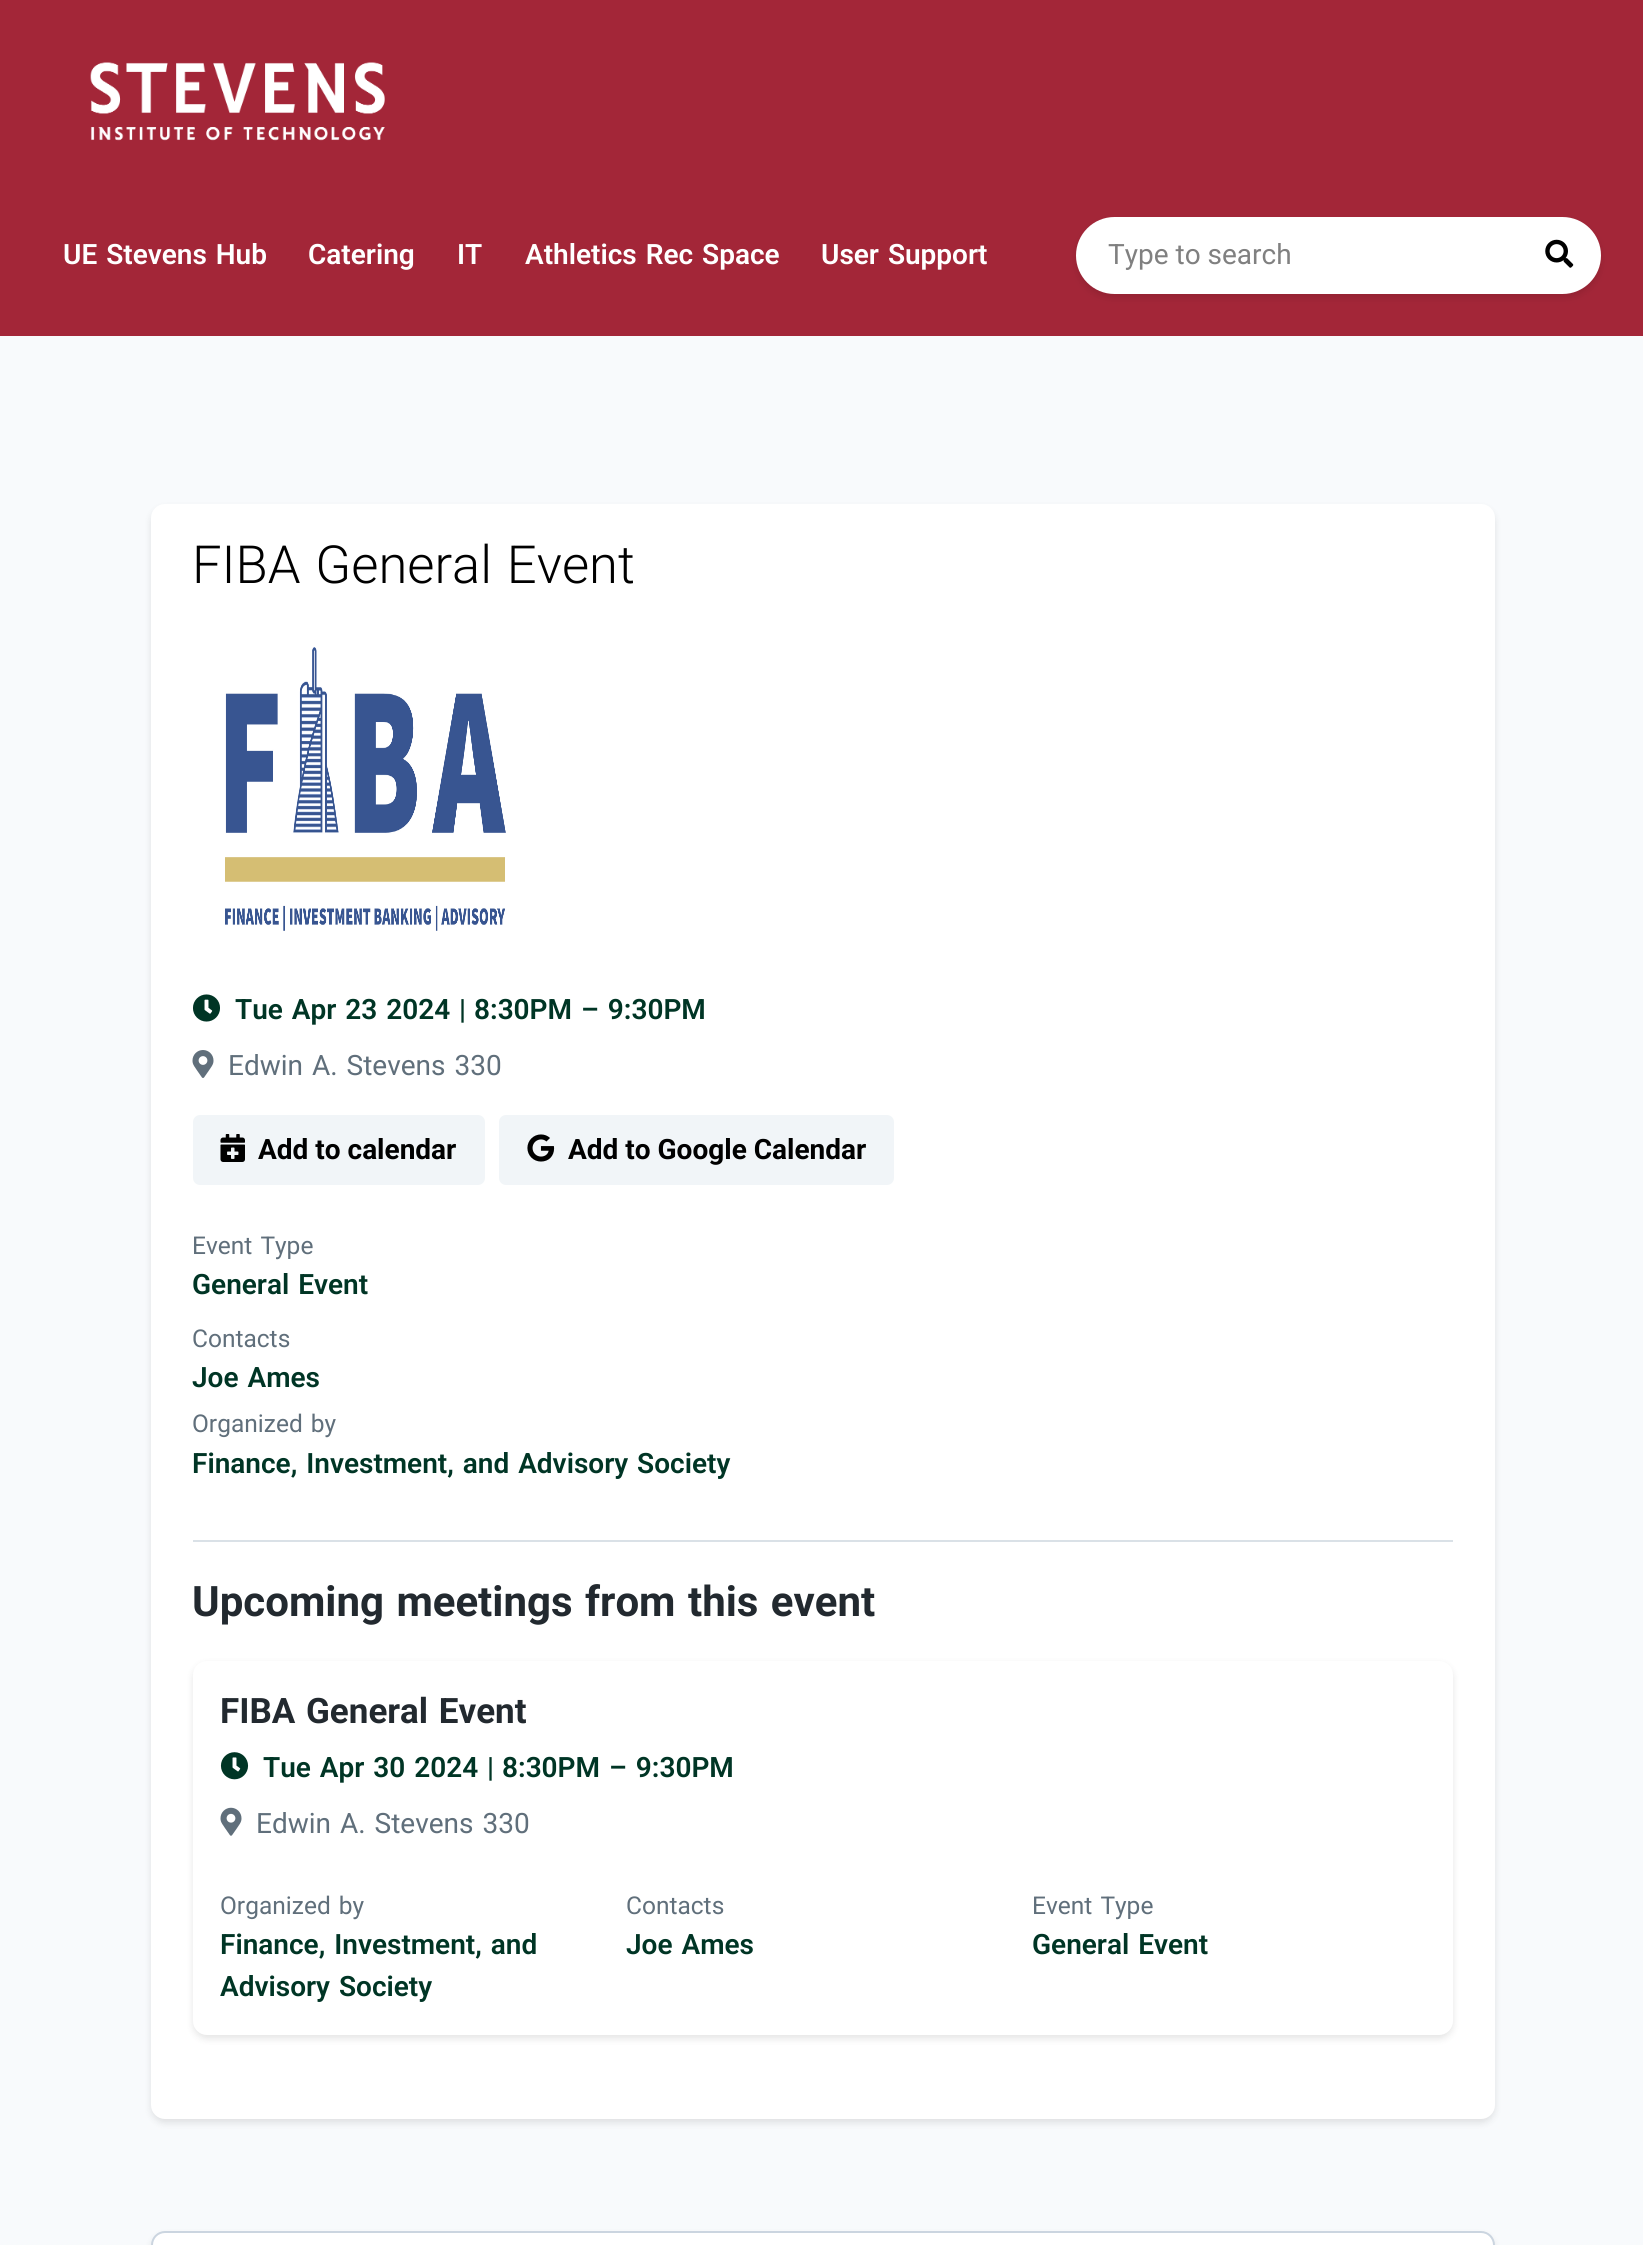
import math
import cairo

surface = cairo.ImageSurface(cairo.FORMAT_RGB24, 1643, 2245)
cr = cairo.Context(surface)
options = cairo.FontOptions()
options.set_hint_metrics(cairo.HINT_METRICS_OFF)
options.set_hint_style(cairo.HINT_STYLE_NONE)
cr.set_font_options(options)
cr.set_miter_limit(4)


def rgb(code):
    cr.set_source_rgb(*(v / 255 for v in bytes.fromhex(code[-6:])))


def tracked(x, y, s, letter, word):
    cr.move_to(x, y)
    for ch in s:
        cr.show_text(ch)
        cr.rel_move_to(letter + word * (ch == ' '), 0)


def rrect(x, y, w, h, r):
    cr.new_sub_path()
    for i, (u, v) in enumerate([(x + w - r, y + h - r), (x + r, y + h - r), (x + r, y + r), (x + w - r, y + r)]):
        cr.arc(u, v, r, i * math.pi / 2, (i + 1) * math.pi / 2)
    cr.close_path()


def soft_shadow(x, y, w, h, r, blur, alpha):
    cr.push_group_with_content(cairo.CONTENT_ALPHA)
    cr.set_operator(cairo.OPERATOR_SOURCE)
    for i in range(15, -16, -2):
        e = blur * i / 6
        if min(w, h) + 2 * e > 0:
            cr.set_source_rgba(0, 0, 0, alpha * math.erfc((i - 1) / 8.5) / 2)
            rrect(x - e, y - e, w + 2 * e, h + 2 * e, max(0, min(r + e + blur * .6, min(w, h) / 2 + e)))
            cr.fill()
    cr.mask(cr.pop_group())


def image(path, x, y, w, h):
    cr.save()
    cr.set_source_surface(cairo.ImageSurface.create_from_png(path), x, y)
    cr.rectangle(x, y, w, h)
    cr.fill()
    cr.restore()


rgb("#f8fafc")
cr.paint()
rgb("#a32638")
cr.rectangle(0, 0, 1643, 336)
cr.fill()
image("img/1.png", 90, 62, 295, 79)
rgb("#000000")
soft_shadow(1076, 221, 525, 77, 38.5, 3.5, 0.1)
rgb("#ffffff")
rrect(1076, 217, 525, 77, 38.5)
cr.fill()
image("img/2.png", 1545, 239, 29, 29)
rgb("#000000")
soft_shadow(151, 508, 1344, 1615, 14, 3.5, 0.1)
rgb("#ffffff")
rrect(151, 504, 1344, 1615, 14)
cr.fill()
image("img/3.png", 225, 647, 281, 284)
image("img/4.png", 193, 994, 27, 28)
image("img/5.png", 192, 1050, 22, 28)
rgb("#f1f5f8")
rrect(193, 1115, 292, 70, 7)
cr.fill()
image("img/6.png", 220, 1134, 25, 28)
rrect(499, 1115, 395, 70, 7)
cr.fill()
image("img/7.png", 527, 1134, 28, 28)
rgb("#dae1e7")
cr.rectangle(193, 1540, 1260, 2)
cr.fill()
rgb("#000000")
soft_shadow(193, 1664, 1260, 375, 14, 3.5, 0.1)
rgb("#ffffff")
rrect(193, 1661, 1260, 374, 14)
cr.fill()
image("img/8.png", 220, 1752, 29, 28)
image("img/9.png", 220, 1807, 22, 29)
rgb("#000000")
soft_shadow(151, 2235, 1344, 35, 14, 3.5, 0.1)
rgb("#ffffff")
rrect(152, 2232, 1342, 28, 13)
cr.fill_preserve()
rgb("#cbd5e0")
cr.stroke()
cr.select_font_face("Roboto SemiBold")
cr.set_font_size(28)
rgb("#ffffff")
tracked(63, 264, "UE Stevens Hub", 0, 2)
cr.move_to(308, 264)
cr.show_text("Catering")
cr.move_to(457, 264)
cr.show_text("IT")
tracked(525, 264, "Athletics Rec Space", 0, 2)
tracked(821, 264, "User Support", 0, 2)
cr.select_font_face("Roboto")
rgb("#808080")
cr.move_to(1108, 264)
cr.show_text("Type to search")
cr.select_font_face("Roboto Light")
cr.set_font_size(52.5)
rgb("#000000")
tracked(192, 583, "FIBA General Event", 0, 2)
cr.select_font_face("Roboto SemiBold")
cr.set_font_size(28)
rgb("#003525")
tracked(235, 1019, "Tue Apr 23 2024", 0, 2)
cr.move_to(459, 1019)
cr.show_text("|")
cr.move_to(474, 1019)
cr.show_text("8:30PM")
tracked(581, 1019, "– 9:30PM", 0, 2)
cr.select_font_face("Roboto")
rgb("#606f7b")
tracked(228, 1075, "Edwin A. Stevens 330", 0, 2)
cr.select_font_face("Roboto", cairo.FONT_SLANT_NORMAL, cairo.FONT_WEIGHT_BOLD)
rgb("#000000")
cr.move_to(258, 1159)
cr.show_text("Add to calendar")
cr.move_to(568, 1159)
cr.show_text("Add to Google Calendar")
cr.select_font_face("Roboto")
cr.set_font_size(24.5)
rgb("#606f7b")
tracked(192, 1254, "Event Type", 0, 2)
cr.select_font_face("Roboto SemiBold")
cr.set_font_size(28)
rgb("#003525")
tracked(192, 1294, "General Event", 0, 2)
cr.select_font_face("Roboto")
cr.set_font_size(24.5)
rgb("#606f7b")
cr.move_to(192, 1347)
cr.show_text("Contacts")
cr.select_font_face("Roboto SemiBold")
cr.set_font_size(28)
rgb("#003525")
tracked(192, 1387, "Joe Ames", 0, 2)
cr.select_font_face("Roboto")
cr.set_font_size(24.5)
rgb("#606f7b")
tracked(192, 1432, "Organized by", 0, 2)
cr.select_font_face("Roboto SemiBold")
cr.set_font_size(28)
rgb("#003525")
tracked(192, 1473, "Finance, Investment, and Advisory Society", 0, 2)
cr.select_font_face("Roboto", cairo.FONT_SLANT_NORMAL, cairo.FONT_WEIGHT_BOLD)
cr.set_font_size(42)
rgb("#22292f")
tracked(192, 1616, "Upcoming meetings from this event", 0, 2)
cr.set_font_size(35)
tracked(220, 1723, "FIBA General Event", 0, 2)
cr.select_font_face("Roboto SemiBold")
cr.set_font_size(28)
rgb("#003525")
tracked(263, 1777, "Tue Apr 30 2024", 0, 2)
cr.move_to(487, 1777)
cr.show_text("|")
cr.move_to(502, 1777)
cr.show_text("8:30PM")
tracked(609, 1777, "– 9:30PM", 0, 2)
cr.select_font_face("Roboto")
rgb("#606f7b")
tracked(256, 1833, "Edwin A. Stevens 330", 0, 2)
cr.set_font_size(24.5)
tracked(220, 1914, "Organized by", 0, 2)
cr.select_font_face("Roboto SemiBold")
cr.set_font_size(28)
rgb("#003525")
tracked(220, 1954, "Finance, Investment, and", 0, 2)
tracked(220, 1996, "Advisory Society", 0, 2)
cr.select_font_face("Roboto")
cr.set_font_size(24.5)
rgb("#606f7b")
cr.move_to(626, 1914)
cr.show_text("Contacts")
cr.select_font_face("Roboto SemiBold")
cr.set_font_size(28)
rgb("#003525")
tracked(626, 1954, "Joe Ames", 0, 2)
cr.select_font_face("Roboto")
cr.set_font_size(24.5)
rgb("#606f7b")
tracked(1032, 1914, "Event Type", 0, 2)
cr.select_font_face("Roboto SemiBold")
cr.set_font_size(28)
rgb("#003525")
tracked(1032, 1954, "General Event", 0, 2)
surface.write_to_png("page.png")
